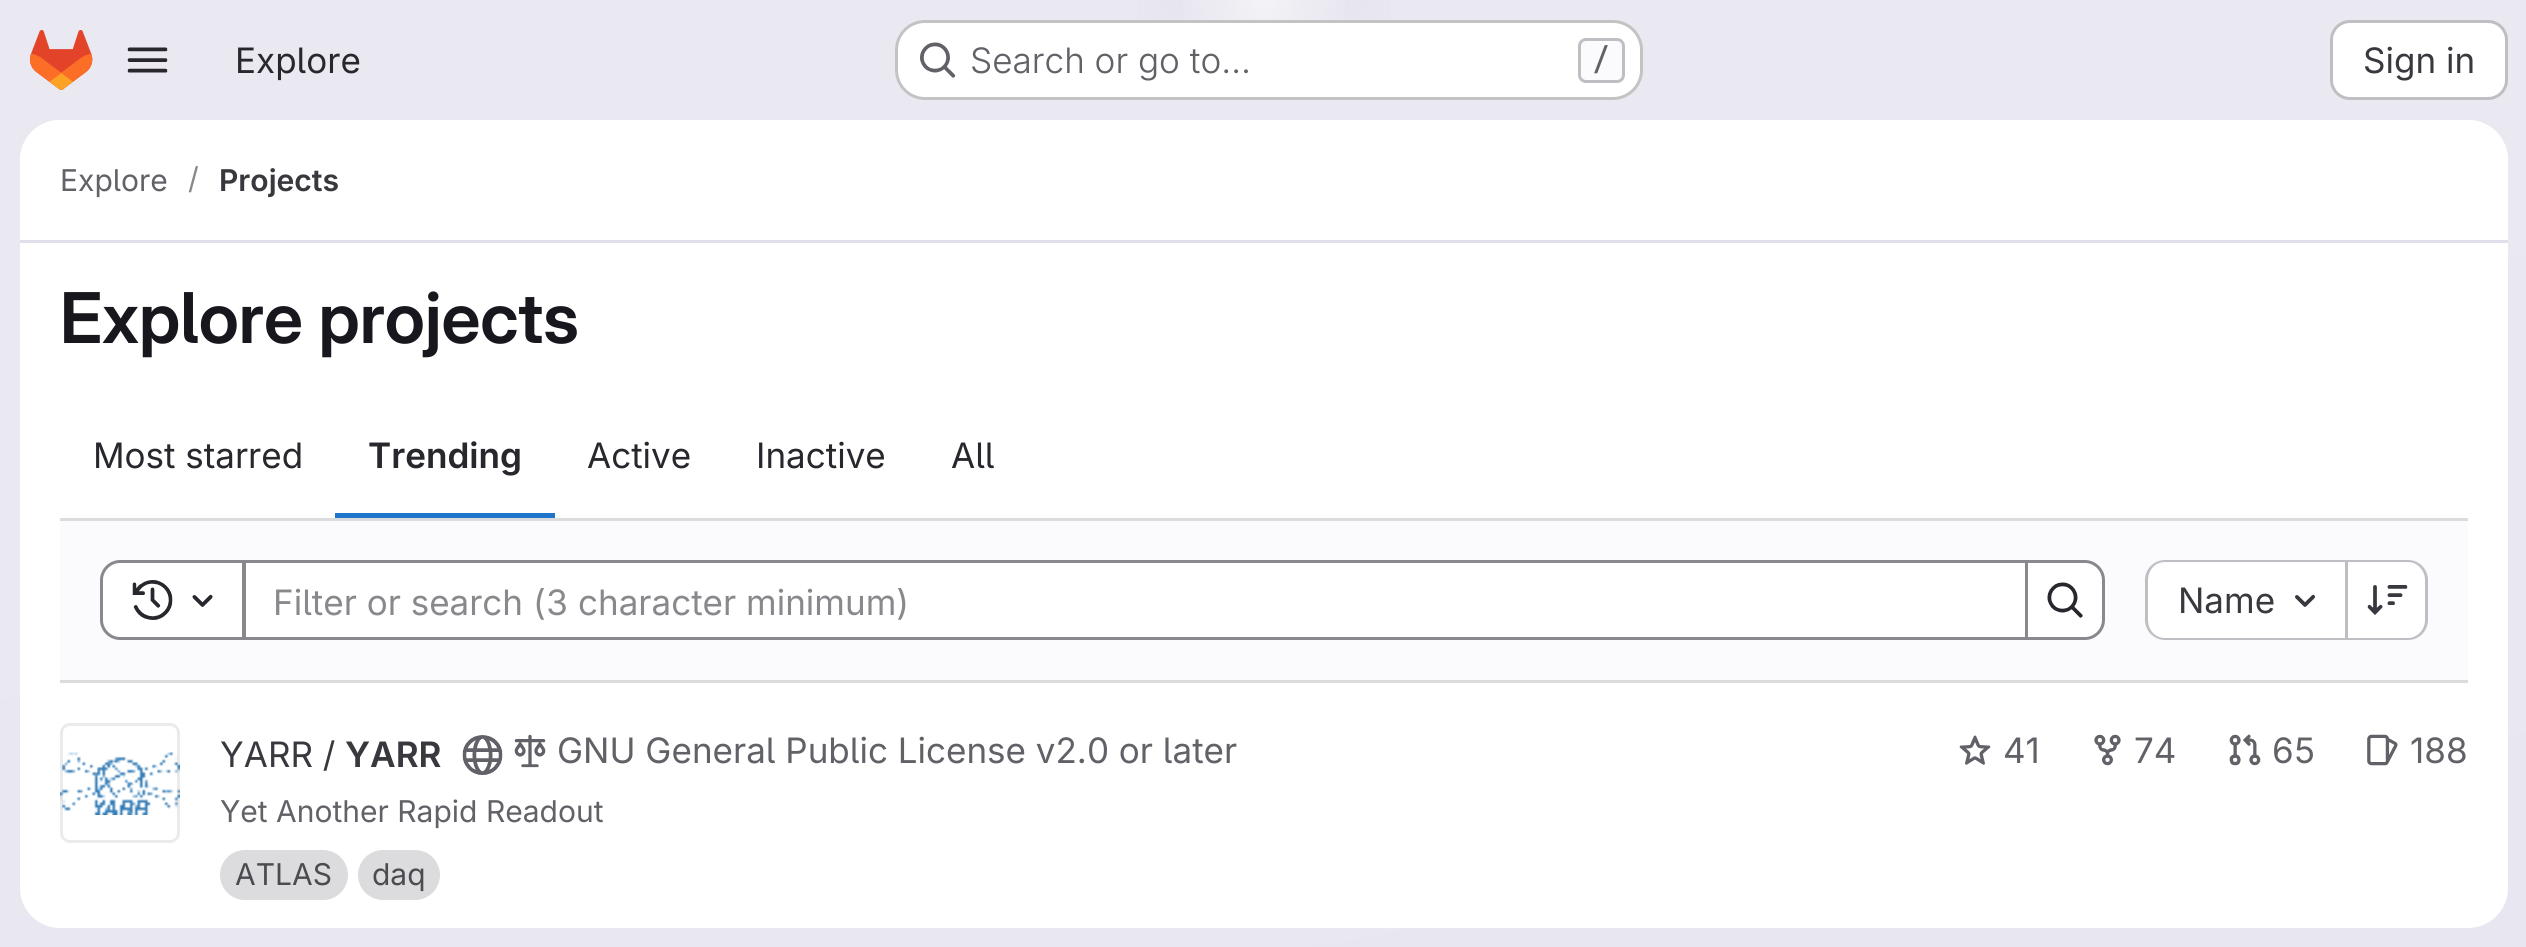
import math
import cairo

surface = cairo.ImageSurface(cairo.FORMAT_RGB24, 2526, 947)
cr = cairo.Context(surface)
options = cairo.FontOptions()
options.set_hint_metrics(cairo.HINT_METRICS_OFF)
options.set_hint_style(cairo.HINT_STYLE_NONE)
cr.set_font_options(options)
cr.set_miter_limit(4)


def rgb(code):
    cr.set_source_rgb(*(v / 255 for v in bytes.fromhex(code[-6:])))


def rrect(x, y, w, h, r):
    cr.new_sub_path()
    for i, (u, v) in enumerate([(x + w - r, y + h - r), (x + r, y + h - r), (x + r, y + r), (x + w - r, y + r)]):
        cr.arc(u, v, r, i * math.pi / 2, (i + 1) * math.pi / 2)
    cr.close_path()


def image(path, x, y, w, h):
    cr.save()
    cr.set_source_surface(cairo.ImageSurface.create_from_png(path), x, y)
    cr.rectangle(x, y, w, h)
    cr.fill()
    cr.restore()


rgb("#ffffff")
cr.paint()
gradient = cairo.LinearGradient(1383, 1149, 1145, -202)
gradient.add_color_stop_rgba(0, 0.91, 0.902, 0.941, 1)
gradient.add_color_stop_rgba(0.7, 0.918, 0.914, 0.949, 1)
cr.set_source(gradient)
cr.rectangle(0, 0, 2526, 947)
cr.fill()
gradient = cairo.RadialGradient(0, 0, 0, 0, 0, 1)
gradient.set_matrix(cairo.Matrix(1 / 1264, 0, 0, 1 / 948, -1 * 1264 / 1264, -1 * 0 / 948))
gradient.add_color_stop_rgba(0, 0.894, 0.886, 0.929, 1)
gradient.add_color_stop_rgba(0.14, 0.894, 0.886, 0.929, 0)
cr.set_source(gradient)
cr.rectangle(1137, 0, 254, 96)
cr.fill()
gradient = cairo.RadialGradient(0, 0, 0, 0, 0, 1)
gradient.set_matrix(cairo.Matrix(1 / 1264, 0, 0, 1 / 948, -1 * 1264 / 1264, -1 * 0 / 948))
gradient.add_color_stop_rgba(0, 0.894, 0.886, 0.925, 1)
gradient.add_color_stop_rgba(0.1, 0.894, 0.886, 0.925, 0)
cr.set_source(gradient)
cr.rectangle(1212, 0, 104, 20)
cr.fill()
gradient = cairo.RadialGradient(1264, 0, 0, 1264, 0, 1580)
gradient.add_color_stop_rgba(0, 1, 1, 1, 0.6)
gradient.add_color_stop_rgba(0.06, 1, 1, 1, 0)
cr.set_source(gradient)
cr.rectangle(1183, 0, 162, 20)
cr.fill()
image("img/1.png", 30, 30, 63, 60)
image("img/2.png", 127, 47, 41, 26)
rgb("#ffffff")
rrect(895, 20, 748, 80, 30)
cr.fill()
rrect(896.5, 21.5, 745, 77, 28.5)
cr.set_source_rgba(0.02, 0.02, 0.024, 0.24)
cr.set_line_width(3)
cr.stroke()
image("img/3.png", 920, 42, 36, 36)
rgb("#fbfafd")
rrect(1579.5, 39.5, 44, 42, 6.5)
cr.fill_preserve()
rgb("#bfbfc3")
cr.stroke()
rgb("#ffffff")
rrect(2331.5, 21.5, 175, 77, 18.5)
cr.fill_preserve()
rgb("#bfbfc3")
cr.stroke()
rgb("#ffffff")
rrect(20, 120, 2488, 808, 40)
cr.fill()
cr.new_path()
cr.move_to(60, 120)
cr.line_to(2468, 120)
cr.curve_to(2490, 120, 2508, 138, 2508, 160)
cr.line_to(2508, 243)
cr.line_to(20, 243)
cr.line_to(20, 160)
cr.curve_to(20, 138, 38, 120, 60, 120)
cr.close_path()
cr.fill()
for x, y, w, h, color in [
    (20, 240, 2488, 3, "#e1dfec"),
    (335, 513, 220, 5, "#1f75cb"),
    (60, 521, 2408, 159, "#fbfafd"),
    (60, 518, 2408, 3, "#dcdcde"),
    (60, 680, 2408, 3, "#dcdcde"),
]:
    rgb(color)
    cr.rectangle(x, y, w, h)
    cr.fill()
rgb("#ffffff")
cr.rectangle(244.5, 561.5, 1782, 77)
cr.fill_preserve()
rgb("#89888d")
cr.stroke()
rgb("#ffffff")
cr.new_path()
cr.move_to(120, 561.5)
cr.line_to(243.5, 561.5)
cr.line_to(243.5, 638.5)
cr.line_to(120, 638.5)
cr.curve_to(110, 638.5, 101.5, 630, 101.5, 620)
cr.line_to(101.5, 580)
cr.curve_to(101.5, 570, 110, 561.5, 120, 561.5)
cr.close_path()
cr.fill_preserve()
rgb("#89888d")
cr.stroke()
image("img/4.png", 132, 580, 41, 40)
image("img/5.png", 192, 594, 21, 13)
rgb("#ffffff")
cr.new_path()
cr.move_to(2026.5, 561.5)
cr.line_to(2085, 561.5)
cr.curve_to(2095, 561.5, 2103.5, 570, 2103.5, 580)
cr.line_to(2103.5, 620)
cr.curve_to(2103.5, 630, 2095, 638.5, 2085, 638.5)
cr.line_to(2026.5, 638.5)
cr.close_path()
cr.fill_preserve()
rgb("#89888d")
cr.stroke()
image("img/6.png", 2047, 582, 36, 36)
rgb("#ffffff")
cr.new_path()
cr.move_to(2166, 563)
cr.line_to(2345, 563)
cr.line_to(2345, 638)
cr.line_to(2166, 638)
cr.curve_to(2156, 638, 2148, 630, 2148, 620)
cr.line_to(2148, 581)
cr.curve_to(2148, 571, 2156, 563, 2166, 563)
cr.close_path()
cr.fill()
rgb("#bfbfc3")
cr.set_fill_rule(cairo.FILL_RULE_EVEN_ODD)
cr.new_path()
cr.move_to(2165, 560)
cr.line_to(2345, 560)
cr.line_to(2345, 640)
cr.line_to(2165, 640)
cr.curve_to(2154, 640, 2145, 631, 2145, 620)
cr.line_to(2145, 580)
cr.curve_to(2145, 569, 2154, 560, 2165, 560)
cr.close_path()
cr.move_to(2165, 562)
cr.line_to(2345, 562)
cr.line_to(2345, 638)
cr.line_to(2165, 638)
cr.curve_to(2155, 638, 2148, 630, 2148, 620)
cr.line_to(2148, 580)
cr.curve_to(2148, 570, 2155, 562, 2165, 562)
cr.close_path()
cr.fill()
image("img/7.png", 2295, 594, 21, 13)
rgb("#ffffff")
cr.new_path()
cr.move_to(2348, 563)
cr.line_to(2407, 563)
cr.curve_to(2417, 563, 2425, 571, 2425, 581)
cr.line_to(2425, 620)
cr.curve_to(2425, 630, 2417, 638, 2407, 638)
cr.line_to(2348, 638)
cr.close_path()
cr.fill()
rgb("#bfbfc3")
cr.new_path()
cr.move_to(2348, 560)
cr.line_to(2408, 560)
cr.curve_to(2419, 560, 2428, 569, 2428, 580)
cr.line_to(2428, 620)
cr.curve_to(2428, 631, 2419, 640, 2408, 640)
cr.line_to(2348, 640)
cr.close_path()
cr.move_to(2348, 562)
cr.line_to(2408, 562)
cr.curve_to(2417, 562, 2425, 570, 2425, 580)
cr.line_to(2425, 620)
cr.curve_to(2425, 630, 2417, 638, 2408, 638)
cr.line_to(2348, 638)
cr.close_path()
cr.fill()
cr.rectangle(2345, 560, 3, 80)
cr.fill()
image("img/8.png", 2367, 585, 41, 30)
image("img/9.png", 60, 752, 120, 63)
rrect(61.5, 724.5, 117, 117, 8.5)
cr.set_source_rgba(0.02, 0.02, 0.024, 0.08)
cr.stroke()
image("img/10.png", 462, 735, 41, 40)
image("img/11.png", 514, 734, 32, 34)
rgb("#dcdcde")
rrect(220, 850, 128, 50, 25)
cr.fill()
rrect(358, 850, 82, 50, 25)
cr.fill()
image("img/12.png", 1959, 735, 32, 30)
image("img/13.png", 2094, 734, 27, 32)
image("img/14.png", 2229, 734, 32, 32)
image("img/15.png", 2367, 734, 31, 32)
cr.select_font_face("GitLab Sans")
cr.set_font_size(35)
rgb("#28272d")
cr.move_to(235, 73)
cr.show_text("Explore")
cr.select_font_face("GitLab Sans Light")
rgb("#626168")
cr.move_to(970, 73)
cr.show_text("Search or go to…")
cr.select_font_face("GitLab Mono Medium")
cr.set_font_size(30)
cr.move_to(1592, 70)
cr.show_text("/")
cr.select_font_face("GitLab Sans")
cr.set_font_size(35)
rgb("#3a383f")
cr.move_to(2363, 73)
cr.show_text("Sign in")
cr.set_font_size(30)
rgb("#626168")
cr.move_to(60, 191)
cr.show_text("Explore")
rgb("#89888d")
cr.move_to(188, 189)
cr.show_text("/")
cr.select_font_face("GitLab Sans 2 SemiBold")
rgb("#3a383f")
cr.move_to(219, 191)
cr.show_text("Projects")
cr.select_font_face("GitLab Sans SemiBold")
cr.set_font_size(70)
rgb("#18171d")
cr.move_to(60, 343)
cr.show_text("Explore projects")
cr.select_font_face("GitLab Sans")
cr.set_font_size(35)
rgb("#28272d")
cr.move_to(93, 468)
cr.show_text("Most starred")
cr.select_font_face("GitLab Sans 2 SemiBold")
cr.move_to(368, 468)
cr.show_text("Trending")
cr.select_font_face("GitLab Sans")
for x, y, s in [
    (587, 468, "Active"),
    (756, 468, "Inactive"),
    (951, 468, "All"),
]:
    cr.move_to(x, y)
    cr.show_text(s)
rgb("#89888d")
cr.move_to(273, 615)
cr.show_text("Filter or search (3 character minimum)")
rgb("#3a383f")
cr.move_to(2178, 613)
cr.show_text("Name")
cr.move_to(220, 767)
cr.show_text("YARR /")
cr.select_font_face("GitLab Sans 2 SemiBold")
cr.move_to(345, 767)
cr.show_text("YARR")
cr.select_font_face("GitLab Sans")
rgb("#626168")
cr.move_to(557, 763)
cr.show_text("GNU General Public License v2.0 or later")
cr.set_font_size(30)
cr.move_to(220, 822)
cr.show_text("Yet Another Rapid Readout")
rgb("#4c4b51")
cr.move_to(235, 885)
cr.show_text("ATLAS")
cr.move_to(372, 885)
cr.show_text("daq")
cr.set_font_size(35)
rgb("#626168")
for x, y, s in [
    (2003, 763, "41"),
    (2134, 763, "74"),
    (2272, 763, "65"),
    (2410, 763, "188"),
]:
    cr.move_to(x, y)
    cr.show_text(s)
surface.write_to_png("page.png")
